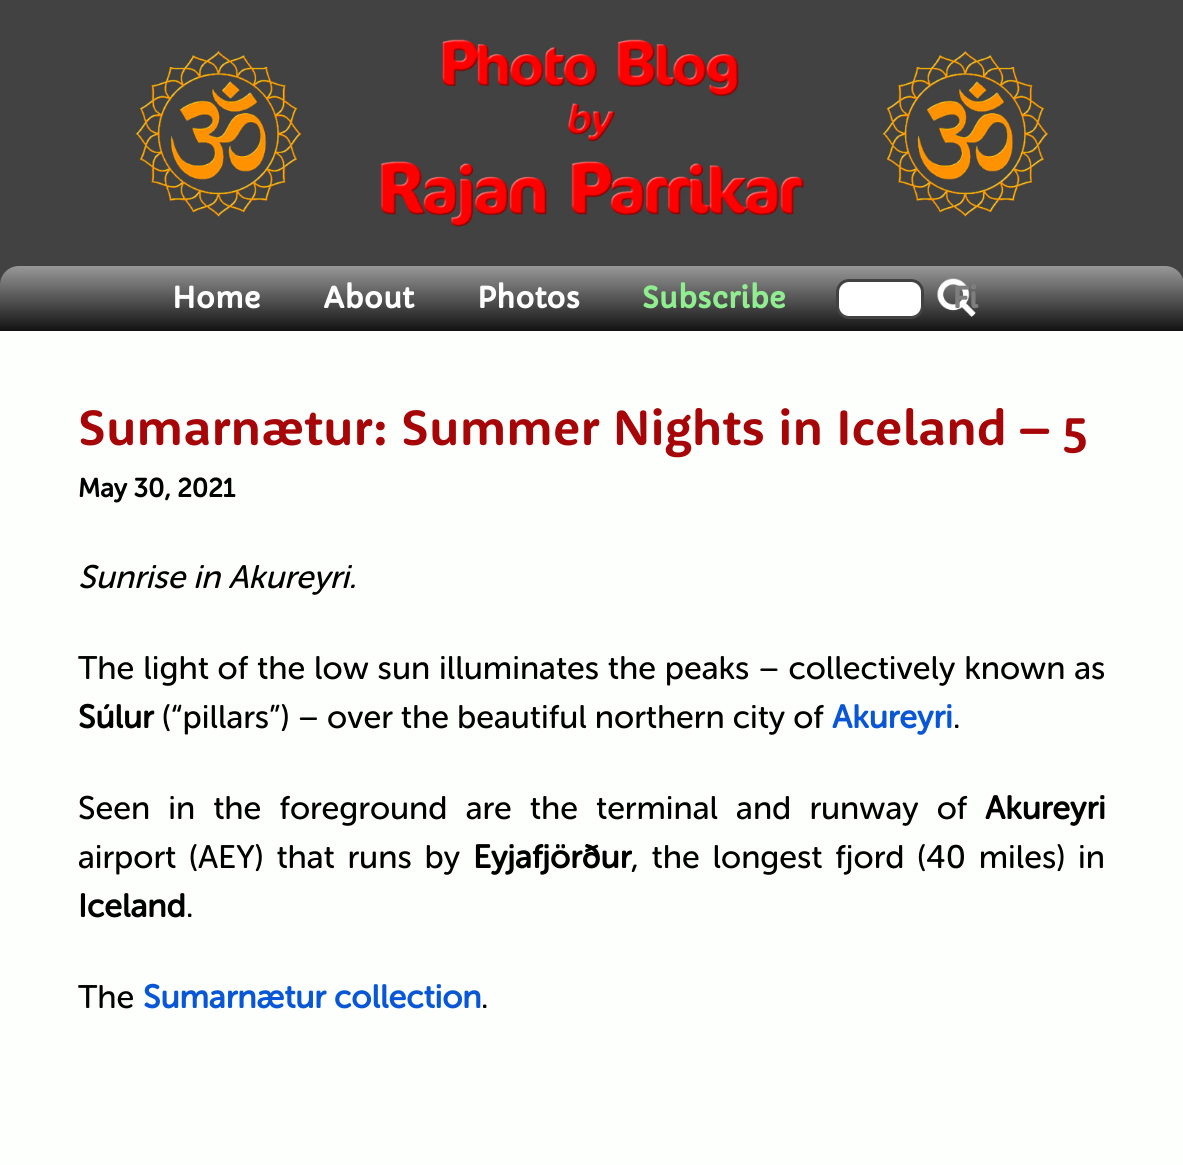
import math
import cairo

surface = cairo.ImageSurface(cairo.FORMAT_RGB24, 1183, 1165)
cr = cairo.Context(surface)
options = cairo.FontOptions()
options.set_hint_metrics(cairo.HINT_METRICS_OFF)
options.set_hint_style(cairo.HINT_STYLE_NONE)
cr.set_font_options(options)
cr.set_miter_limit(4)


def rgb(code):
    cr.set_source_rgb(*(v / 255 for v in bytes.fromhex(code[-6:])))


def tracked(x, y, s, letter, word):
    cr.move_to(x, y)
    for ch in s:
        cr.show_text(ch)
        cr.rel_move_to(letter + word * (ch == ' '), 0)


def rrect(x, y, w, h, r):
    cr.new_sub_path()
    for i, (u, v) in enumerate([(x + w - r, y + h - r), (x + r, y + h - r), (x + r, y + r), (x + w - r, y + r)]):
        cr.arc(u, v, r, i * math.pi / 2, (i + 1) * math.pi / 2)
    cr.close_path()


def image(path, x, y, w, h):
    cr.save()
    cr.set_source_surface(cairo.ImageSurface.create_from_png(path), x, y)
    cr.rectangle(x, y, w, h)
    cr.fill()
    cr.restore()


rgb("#424242")
cr.paint()
image("img/1.png", 135, 39, 913, 188)
gradient = cairo.LinearGradient(0, 331, 0, 266)
gradient.add_color_stop_rgba(0, 0.071, 0.071, 0.071, 1)
gradient.add_color_stop_rgba(1, 0.596, 0.596, 0.596, 1)
cr.set_source(gradient)
cr.new_path()
cr.move_to(19, 266)
cr.line_to(1165, 266)
cr.curve_to(1175.5, 266, 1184, 274.5, 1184, 285)
cr.line_to(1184, 331)
cr.line_to(0, 331)
cr.line_to(0, 285)
cr.curve_to(0, 274.5, 8.5, 266, 19, 266)
cr.close_path()
cr.fill()
rgb("#ffffff")
rrect(837.5, 280.5, 85, 37, 11.5)
cr.fill_preserve()
rgb("#424242")
cr.set_line_width(3)
cr.stroke()
image("img/2.png", 937, 278, 39, 39)
rgb("#fdfffd")
cr.rectangle(0, 331, 1183, 834)
cr.fill()
cr.select_font_face("Capriola", cairo.FONT_SLANT_NORMAL, cairo.FONT_WEIGHT_BOLD)
cr.set_font_size(28.75)
rgb("#fefefe")
for x, y, s in [
    (172, 308, "Home"),
    (323, 308, "About"),
    (477, 308, "Photos"),
]:
    cr.move_to(x, y)
    cr.show_text(s)
rgb("#90ee90")
cr.move_to(642, 308)
cr.show_text("Subscribe")
rgb("#7e7e7e")
cr.move_to(952, 308)
cr.show_text("Fi")
cr.select_font_face("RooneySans", cairo.FONT_SLANT_NORMAL, cairo.FONT_WEIGHT_BOLD)
cr.set_font_size(51.25)
rgb("#a70608")
cr.move_to(78, 445)
cr.show_text("Sumarnætur: Summer Nights in Iceland – 5")
cr.select_font_face("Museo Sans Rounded", cairo.FONT_SLANT_NORMAL, cairo.FONT_WEIGHT_BOLD)
cr.set_font_size(26.25)
rgb("#000000")
cr.move_to(78, 497)
cr.show_text("May 30, 2021")
cr.select_font_face("Museo Sans Rounded", cairo.FONT_SLANT_ITALIC)
cr.set_font_size(32.5)
cr.move_to(78, 588)
cr.show_text("Sunrise in Akureyri.")
cr.select_font_face("Museo Sans Rounded")
tracked(78, 679, "The light of the low sun illuminates the peaks – collectively known as", 0, 0.75)
cr.select_font_face("Museo Sans Rounded", cairo.FONT_SLANT_NORMAL, cairo.FONT_WEIGHT_BOLD)
cr.move_to(78, 728)
cr.show_text("Súlur")
cr.select_font_face("Museo Sans Rounded")
cr.move_to(162, 728)
cr.show_text("(“pillars”) – over the beautiful northern city of")
cr.select_font_face("Museo Sans Rounded", cairo.FONT_SLANT_NORMAL, cairo.FONT_WEIGHT_BOLD)
rgb("#0957d7")
cr.move_to(832, 728)
cr.show_text("Akureyri")
cr.select_font_face("Museo Sans Rounded")
rgb("#000000")
cr.move_to(953, 728)
cr.show_text(".")
tracked(78, 819, "Seen in the foreground are the terminal and runway of", 0, 10)
cr.select_font_face("Museo Sans Rounded", cairo.FONT_SLANT_NORMAL, cairo.FONT_WEIGHT_BOLD)
cr.move_to(985, 819)
cr.show_text("Akureyri")
cr.select_font_face("Museo Sans Rounded")
tracked(78, 868, "airport (AEY) that runs by", 0, 4.75)
cr.select_font_face("Museo Sans Rounded", cairo.FONT_SLANT_NORMAL, cairo.FONT_WEIGHT_BOLD)
cr.move_to(473, 868)
cr.show_text("Eyjafjörður")
cr.select_font_face("Museo Sans Rounded")
tracked(631, 868, ", the longest fjord (40 miles) in", 0, 4.75)
cr.select_font_face("Museo Sans Rounded", cairo.FONT_SLANT_NORMAL, cairo.FONT_WEIGHT_BOLD)
cr.move_to(78, 917)
cr.show_text("Iceland")
cr.select_font_face("Museo Sans Rounded")
cr.move_to(186, 917)
cr.show_text(".")
cr.move_to(78, 1008)
cr.show_text("The")
cr.select_font_face("Museo Sans Rounded", cairo.FONT_SLANT_NORMAL, cairo.FONT_WEIGHT_BOLD)
rgb("#0957d7")
cr.move_to(143, 1008)
cr.show_text("Sumarnætur collection")
cr.select_font_face("Museo Sans Rounded")
rgb("#000000")
cr.move_to(481, 1008)
cr.show_text(".")
surface.write_to_png("page.png")
